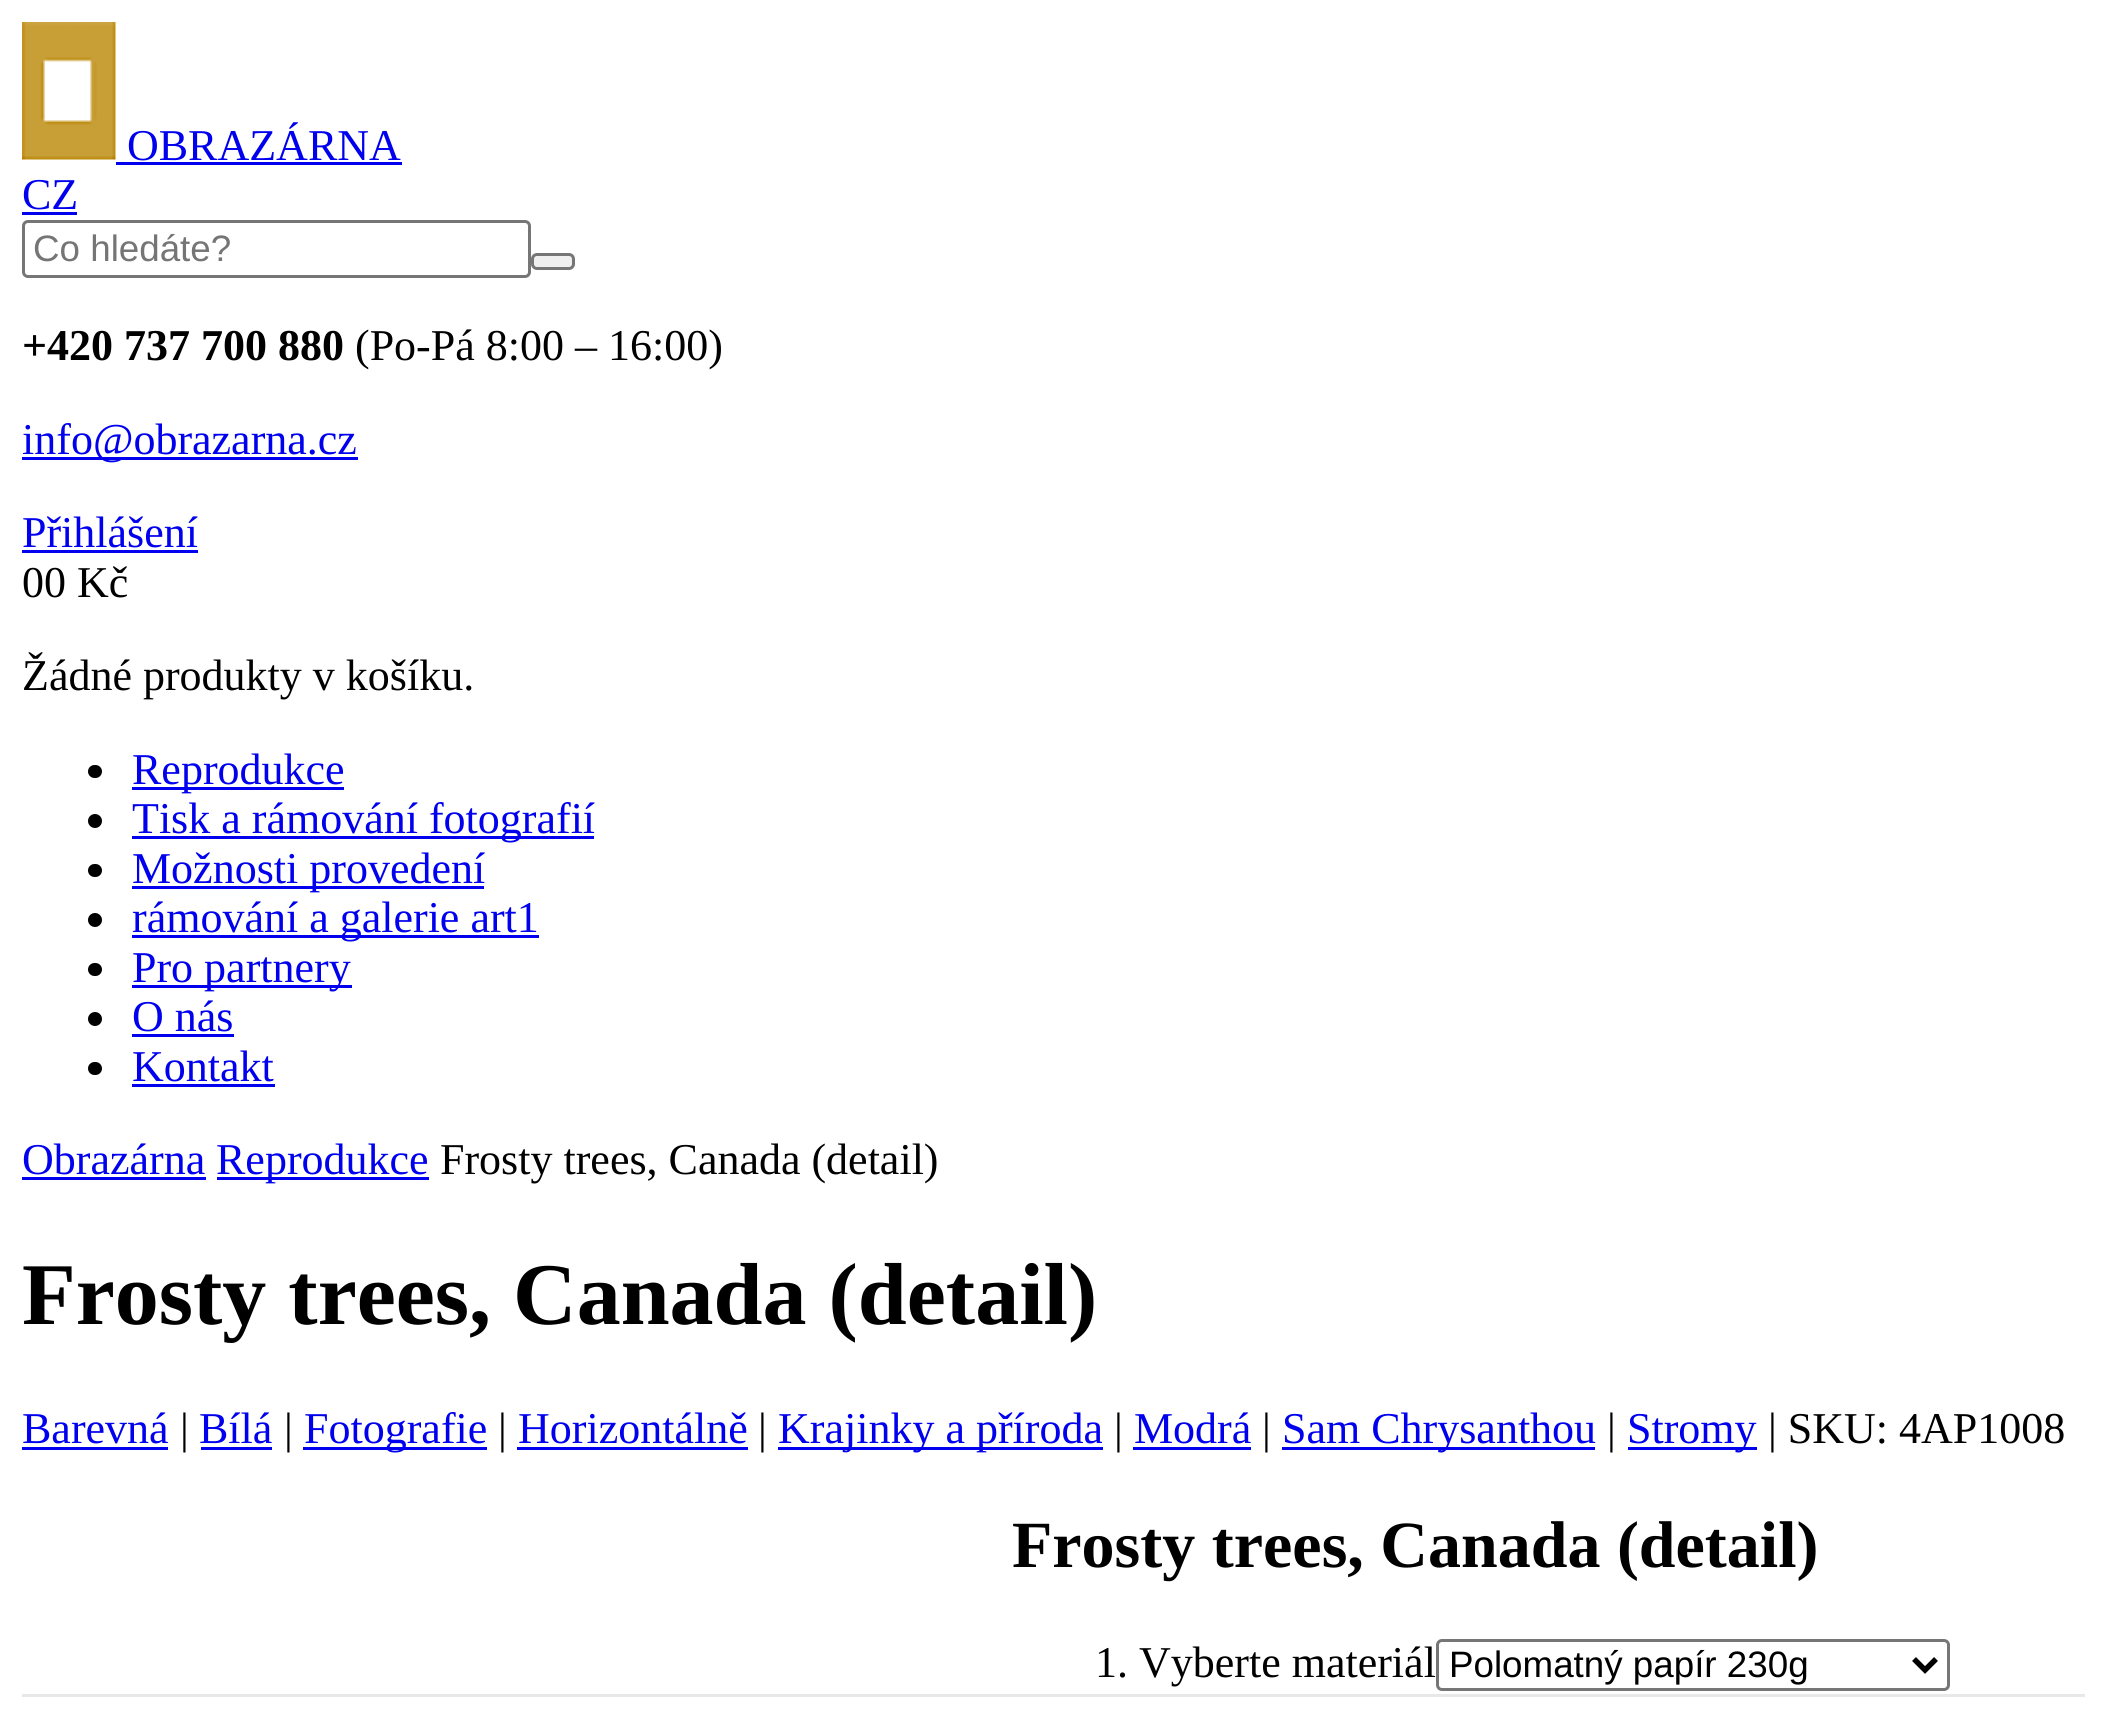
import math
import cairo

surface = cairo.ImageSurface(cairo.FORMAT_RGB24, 2104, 1721)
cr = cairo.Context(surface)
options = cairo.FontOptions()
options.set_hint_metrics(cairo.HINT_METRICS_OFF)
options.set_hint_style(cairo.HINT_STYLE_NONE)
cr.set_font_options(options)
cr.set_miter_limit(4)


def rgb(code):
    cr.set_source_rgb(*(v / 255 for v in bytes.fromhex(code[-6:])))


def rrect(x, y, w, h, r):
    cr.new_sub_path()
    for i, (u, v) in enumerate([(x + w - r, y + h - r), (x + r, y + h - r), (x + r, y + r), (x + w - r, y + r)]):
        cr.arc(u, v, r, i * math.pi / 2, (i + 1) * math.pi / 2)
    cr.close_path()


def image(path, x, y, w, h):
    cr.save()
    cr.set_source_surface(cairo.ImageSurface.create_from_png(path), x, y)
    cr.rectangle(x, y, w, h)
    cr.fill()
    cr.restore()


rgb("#ffffff")
cr.paint()
image("img/1.png", 22, 22, 94, 138)
rgb("#0000ee")
cr.rectangle(116, 162, 286, 3)
cr.fill()
cr.rectangle(22, 212, 55, 3)
cr.fill()
rrect(23.5, 221.5, 506, 55, 4.5)
rgb("#767676")
cr.set_line_width(3)
cr.stroke()
rgb("#efefef")
rrect(532.5, 254.5, 41, 14, 4.5)
cr.fill_preserve()
rgb("#767676")
cr.stroke()
rgb("#0000ee")
cr.rectangle(22, 457, 336, 3)
cr.fill()
cr.rectangle(22, 550, 176, 3)
cr.fill()
rgb("#000000")
rrect(88, 765, 14, 13, 6.5)
cr.fill()
rgb("#0000ee")
cr.rectangle(132, 787, 212, 3)
cr.fill()
rgb("#000000")
cr.arc(95, 821, 7, 0, 2 * math.pi)
cr.fill()
rgb("#0000ee")
cr.rectangle(132, 836, 462, 3)
cr.fill()
rgb("#000000")
rrect(88, 864, 14, 13, 6.5)
cr.fill()
rgb("#0000ee")
cr.rectangle(132, 886, 352, 3)
cr.fill()
rgb("#000000")
cr.arc(95, 920, 7, 0, 2 * math.pi)
cr.fill()
rgb("#0000ee")
cr.rectangle(132, 935, 407, 3)
cr.fill()
rgb("#000000")
rrect(88, 963, 14, 13, 6.5)
cr.fill()
rgb("#0000ee")
cr.rectangle(132, 985, 220, 3)
cr.fill()
rgb("#000000")
cr.arc(95, 1019, 7, 0, 2 * math.pi)
cr.fill()
rgb("#0000ee")
cr.rectangle(132, 1034, 102, 3)
cr.fill()
rgb("#000000")
rrect(88, 1062, 14, 13, 6.5)
cr.fill()
for x, y, w, h, color in [
    (132, 1084, 143, 3, "#0000ee"),
    (22, 1177, 184, 3, "#0000ee"),
    (217, 1177, 212, 3, "#0000ee"),
    (22, 1447, 146, 3, "#0000ee"),
    (201, 1447, 71, 3, "#0000ee"),
    (303, 1447, 184, 3, "#0000ee"),
    (517, 1447, 231, 3, "#0000ee"),
    (778, 1447, 325, 3, "#0000ee"),
    (1133, 1447, 118, 3, "#0000ee"),
    (1282, 1447, 313, 3, "#0000ee"),
    (1628, 1447, 129, 3, "#0000ee"),
]:
    rgb(color)
    cr.rectangle(x, y, w, h)
    cr.fill()
rrect(1437.5, 1640.5, 511, 49, 4.5)
rgb("#767676")
cr.stroke()
cr.new_path()
cr.move_to(1914, 1659)
cr.line_to(1925, 1670)
cr.line_to(1936, 1659)
rgb("#000000")
cr.set_line_width(5.5)
cr.stroke()
rgb("#e8e8e8")
cr.rectangle(22, 1694, 2063, 3)
cr.fill()
cr.select_font_face("Liberation Serif")
cr.set_font_size(44)
rgb("#0000ee")
cr.move_to(127, 160)
cr.show_text("OBRAZÁRNA")
cr.move_to(22, 209)
cr.show_text("CZ")
cr.select_font_face("Liberation Sans")
cr.set_font_size(36.75)
rgb("#757575")
cr.move_to(33, 261)
cr.show_text("Co hledáte?")
cr.select_font_face("Liberation Serif", cairo.FONT_SLANT_NORMAL, cairo.FONT_WEIGHT_BOLD)
cr.set_font_size(44)
rgb("#000000")
cr.move_to(22, 360)
cr.show_text("+420 737 700 880")
cr.select_font_face("Liberation Serif")
cr.move_to(355, 360)
cr.show_text("(Po-Pá 8:00 – 16:00)")
rgb("#0000ee")
cr.move_to(22, 454)
cr.show_text("info@obrazarna.cz")
cr.move_to(22, 547)
cr.show_text("Přihlášení")
rgb("#000000")
cr.move_to(22, 597)
cr.show_text("00 Kč")
cr.move_to(22, 690)
cr.show_text("Žádné produkty v košíku.")
rgb("#0000ee")
for x, y, s in [
    (132, 784, "Reprodukce"),
    (132, 833, "Tisk a rámování fotografií"),
    (132, 883, "Možnosti provedení"),
    (132, 932, "rámování a galerie art1"),
    (132, 982, "Pro partnery"),
    (132, 1031, "O nás"),
    (132, 1081, "Kontakt"),
    (22, 1174, "Obrazárna"),
    (216, 1174, "Reprodukce"),
]:
    cr.move_to(x, y)
    cr.show_text(s)
rgb("#000000")
cr.move_to(440, 1174)
cr.show_text("Frosty trees, Canada (detail)")
cr.select_font_face("Liberation Serif", cairo.FONT_SLANT_NORMAL, cairo.FONT_WEIGHT_BOLD)
cr.set_font_size(88)
cr.move_to(22, 1324)
cr.show_text("Frosty trees, Canada (detail)")
cr.select_font_face("Liberation Serif")
cr.set_font_size(44)
rgb("#0000ee")
cr.move_to(22, 1443)
cr.show_text("Barevná")
rgb("#000000")
cr.move_to(180, 1443)
cr.show_text("|")
rgb("#0000ee")
cr.move_to(199, 1443)
cr.show_text("Bílá")
rgb("#000000")
cr.move_to(284, 1443)
cr.show_text("|")
rgb("#0000ee")
cr.move_to(304, 1443)
cr.show_text("Fotografie")
rgb("#000000")
cr.move_to(498, 1443)
cr.show_text("|")
rgb("#0000ee")
cr.move_to(518, 1443)
cr.show_text("Horizontálně")
rgb("#000000")
cr.move_to(758, 1443)
cr.show_text("|")
rgb("#0000ee")
cr.move_to(778, 1443)
cr.show_text("Krajinky a příroda")
rgb("#000000")
cr.move_to(1114, 1443)
cr.show_text("|")
rgb("#0000ee")
cr.move_to(1134, 1443)
cr.show_text("Modrá")
rgb("#000000")
cr.move_to(1262, 1443)
cr.show_text("|")
rgb("#0000ee")
cr.move_to(1282, 1443)
cr.show_text("Sam Chrysanthou")
rgb("#000000")
cr.move_to(1607, 1443)
cr.show_text("|")
rgb("#0000ee")
cr.move_to(1627, 1443)
cr.show_text("Stromy")
rgb("#000000")
cr.move_to(1768, 1443)
cr.show_text("| SKU: 4AP1008")
cr.select_font_face("Liberation Serif", cairo.FONT_SLANT_NORMAL, cairo.FONT_WEIGHT_BOLD)
cr.set_font_size(66)
cr.move_to(1012, 1567)
cr.show_text("Frosty trees, Canada (detail)")
cr.select_font_face("Liberation Serif")
cr.set_font_size(44)
cr.move_to(1095, 1677)
cr.show_text("1. Vyberte materiál")
cr.select_font_face("Liberation Sans")
cr.set_font_size(36.75)
cr.move_to(1449, 1677)
cr.show_text("Polomatný papír 230g")
surface.write_to_png("page.png")
